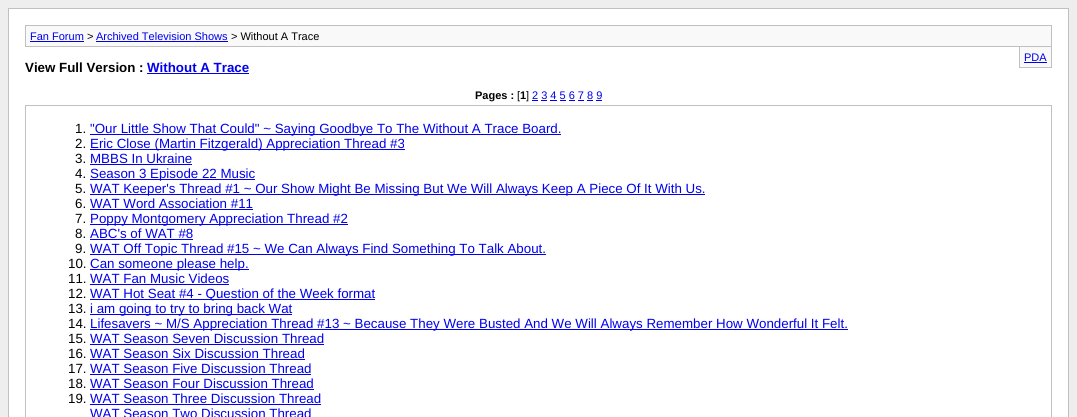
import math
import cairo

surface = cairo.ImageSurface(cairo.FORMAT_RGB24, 1077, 417)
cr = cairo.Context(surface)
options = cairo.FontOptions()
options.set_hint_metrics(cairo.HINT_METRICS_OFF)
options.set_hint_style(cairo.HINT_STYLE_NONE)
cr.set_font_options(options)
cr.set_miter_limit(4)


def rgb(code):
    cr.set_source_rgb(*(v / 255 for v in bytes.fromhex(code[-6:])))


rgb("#eeeeee")
cr.paint()
rgb("#ffffff")
cr.rectangle(8.5, 8.5, 1060, 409)
cr.fill_preserve()
rgb("#c0c0c0")
cr.set_line_width(1)
cr.stroke()
rgb("#f9f9f9")
cr.rectangle(25.5, 25.5, 1026, 21)
cr.fill_preserve()
rgb("#c0c0c0")
cr.stroke()
for x, y, w, h, color in [
    (30, 41, 54, 1, "#0000ee"),
    (96, 41, 132, 1, "#0000ee"),
    (1020, 47, 31, 20, "#f9f9f9"),
    (1051, 47, 1, 21, "#c0c0c0"),
    (1019, 67, 33, 1, "#c0c0c0"),
    (1019, 47, 1, 21, "#c0c0c0"),
    (1024, 62, 23, 1, "#0000ee"),
    (147, 73, 102, 1, "#0000ee"),
    (532, 100, 6, 1, "#0000ee"),
    (541, 100, 6, 1, "#0000ee"),
    (550, 100, 7, 1, "#0000ee"),
    (560, 100, 6, 1, "#0000ee"),
    (569, 100, 6, 1, "#0000ee"),
    (578, 100, 6, 1, "#0000ee"),
    (587, 100, 6, 1, "#0000ee"),
    (596, 100, 6, 1, "#0000ee"),
]:
    rgb(color)
    cr.rectangle(x, y, w, h)
    cr.fill()
cr.rectangle(25.5, 105.5, 1026, 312)
rgb("#c0c0c0")
cr.stroke()
for x, y, w, h, color in [
    (90, 134, 471, 1, "#0000ee"),
    (90, 149, 315, 1, "#0000ee"),
    (90, 164, 102, 1, "#0000ee"),
    (90, 179, 165, 1, "#0000ee"),
    (90, 194, 615, 1, "#0000ee"),
    (90, 209, 163, 1, "#0000ee"),
    (90, 224, 258, 1, "#0000ee"),
    (90, 239, 103, 1, "#0000ee"),
    (90, 254, 456, 1, "#0000ee"),
    (90, 269, 159, 1, "#0000ee"),
    (90, 284, 139, 1, "#0000ee"),
    (90, 299, 285, 1, "#0000ee"),
    (90, 314, 202, 1, "#0000ee"),
    (90, 329, 758, 1, "#0000ee"),
    (90, 344, 234, 1, "#0000ee"),
    (90, 359, 215, 1, "#0000ee"),
    (90, 374, 221, 1, "#0000ee"),
    (90, 389, 224, 1, "#0000ee"),
    (90, 404, 231, 1, "#0000ee"),
]:
    rgb(color)
    cr.rectangle(x, y, w, h)
    cr.fill()
cr.select_font_face("Liberation Sans")
cr.set_font_size(11)
cr.move_to(30, 40)
cr.show_text("Fan Forum")
rgb("#000000")
cr.move_to(87, 40)
cr.show_text(">")
rgb("#0000ee")
cr.move_to(96, 40)
cr.show_text("Archived Television Shows")
rgb("#000000")
cr.move_to(231, 40)
cr.show_text("> Without A Trace")
rgb("#0000ee")
cr.move_to(1024, 61)
cr.show_text("PDA")
cr.select_font_face("Liberation Sans", cairo.FONT_SLANT_NORMAL, cairo.FONT_WEIGHT_BOLD)
cr.set_font_size(13.33)
rgb("#000000")
cr.move_to(25, 72)
cr.show_text("View Full Version :")
rgb("#0000ee")
cr.move_to(147, 72)
cr.show_text("Without A Trace")
cr.set_font_size(11)
rgb("#000000")
cr.move_to(475, 99)
cr.show_text("Pages :")
cr.select_font_face("Liberation Sans")
cr.move_to(517, 99)
cr.show_text("[")
cr.select_font_face("Liberation Sans", cairo.FONT_SLANT_NORMAL, cairo.FONT_WEIGHT_BOLD)
cr.move_to(520, 99)
cr.show_text("1")
cr.select_font_face("Liberation Sans")
cr.move_to(526, 99)
cr.show_text("]")
rgb("#0000ee")
cr.move_to(532, 99)
cr.show_text("2 3 4 5 6 7 8 9")
cr.set_font_size(13.33)
rgb("#000000")
cr.move_to(75, 133)
cr.show_text("1.")
rgb("#0000ee")
cr.move_to(90, 133)
cr.show_text("\"Our Little Show That Could\" ~ Saying Goodbye To The Without A Trace Board.")
rgb("#000000")
cr.move_to(75, 148)
cr.show_text("2.")
rgb("#0000ee")
cr.move_to(90, 148)
cr.show_text("Eric Close (Martin Fitzgerald) Appreciation Thread #3")
rgb("#000000")
cr.move_to(75, 163)
cr.show_text("3.")
rgb("#0000ee")
cr.move_to(90, 163)
cr.show_text("MBBS In Ukraine")
rgb("#000000")
cr.move_to(75, 178)
cr.show_text("4.")
rgb("#0000ee")
cr.move_to(90, 178)
cr.show_text("Season 3 Episode 22 Music")
rgb("#000000")
cr.move_to(75, 193)
cr.show_text("5.")
rgb("#0000ee")
cr.move_to(90, 193)
cr.show_text("WAT Keeper's Thread #1 ~ Our Show Might Be Missing But We Will Always Keep A Piece Of It With Us.")
rgb("#000000")
cr.move_to(75, 208)
cr.show_text("6.")
rgb("#0000ee")
cr.move_to(90, 208)
cr.show_text("WAT Word Association #11")
rgb("#000000")
cr.move_to(75, 223)
cr.show_text("7.")
rgb("#0000ee")
cr.move_to(90, 223)
cr.show_text("Poppy Montgomery Appreciation Thread #2")
rgb("#000000")
cr.move_to(75, 238)
cr.show_text("8.")
rgb("#0000ee")
cr.move_to(90, 238)
cr.show_text("ABC's of WAT #8")
rgb("#000000")
cr.move_to(75, 253)
cr.show_text("9.")
rgb("#0000ee")
cr.move_to(90, 253)
cr.show_text("WAT Off Topic Thread #15 ~ We Can Always Find Something To Talk About.")
rgb("#000000")
cr.move_to(68, 268)
cr.show_text("10.")
rgb("#0000ee")
cr.move_to(90, 268)
cr.show_text("Can someone please help.")
rgb("#000000")
cr.move_to(68, 283)
cr.show_text("11.")
rgb("#0000ee")
cr.move_to(90, 283)
cr.show_text("WAT Fan Music Videos")
rgb("#000000")
cr.move_to(68, 298)
cr.show_text("12.")
rgb("#0000ee")
cr.move_to(90, 298)
cr.show_text("WAT Hot Seat #4 - Question of the Week format")
rgb("#000000")
cr.move_to(68, 313)
cr.show_text("13.")
rgb("#0000ee")
cr.move_to(90, 313)
cr.show_text("i am going to try to bring back Wat")
rgb("#000000")
cr.move_to(68, 328)
cr.show_text("14.")
rgb("#0000ee")
cr.move_to(90, 328)
cr.show_text("Lifesavers ~ M/S Appreciation Thread #13 ~ Because They Were Busted And We Will Always Remember How Wonderful It Felt.")
rgb("#000000")
cr.move_to(68, 343)
cr.show_text("15.")
rgb("#0000ee")
cr.move_to(90, 343)
cr.show_text("WAT Season Seven Discussion Thread")
rgb("#000000")
cr.move_to(68, 358)
cr.show_text("16.")
rgb("#0000ee")
cr.move_to(90, 358)
cr.show_text("WAT Season Six Discussion Thread")
rgb("#000000")
cr.move_to(68, 373)
cr.show_text("17.")
rgb("#0000ee")
cr.move_to(90, 373)
cr.show_text("WAT Season Five Discussion Thread")
rgb("#000000")
cr.move_to(68, 388)
cr.show_text("18.")
rgb("#0000ee")
cr.move_to(90, 388)
cr.show_text("WAT Season Four Discussion Thread")
rgb("#000000")
cr.move_to(68, 403)
cr.show_text("19.")
rgb("#0000ee")
cr.move_to(90, 403)
cr.show_text("WAT Season Three Discussion Thread")
cr.move_to(90, 418)
cr.show_text("WAT Season Two Discussion Thread")
surface.write_to_png("page.png")
